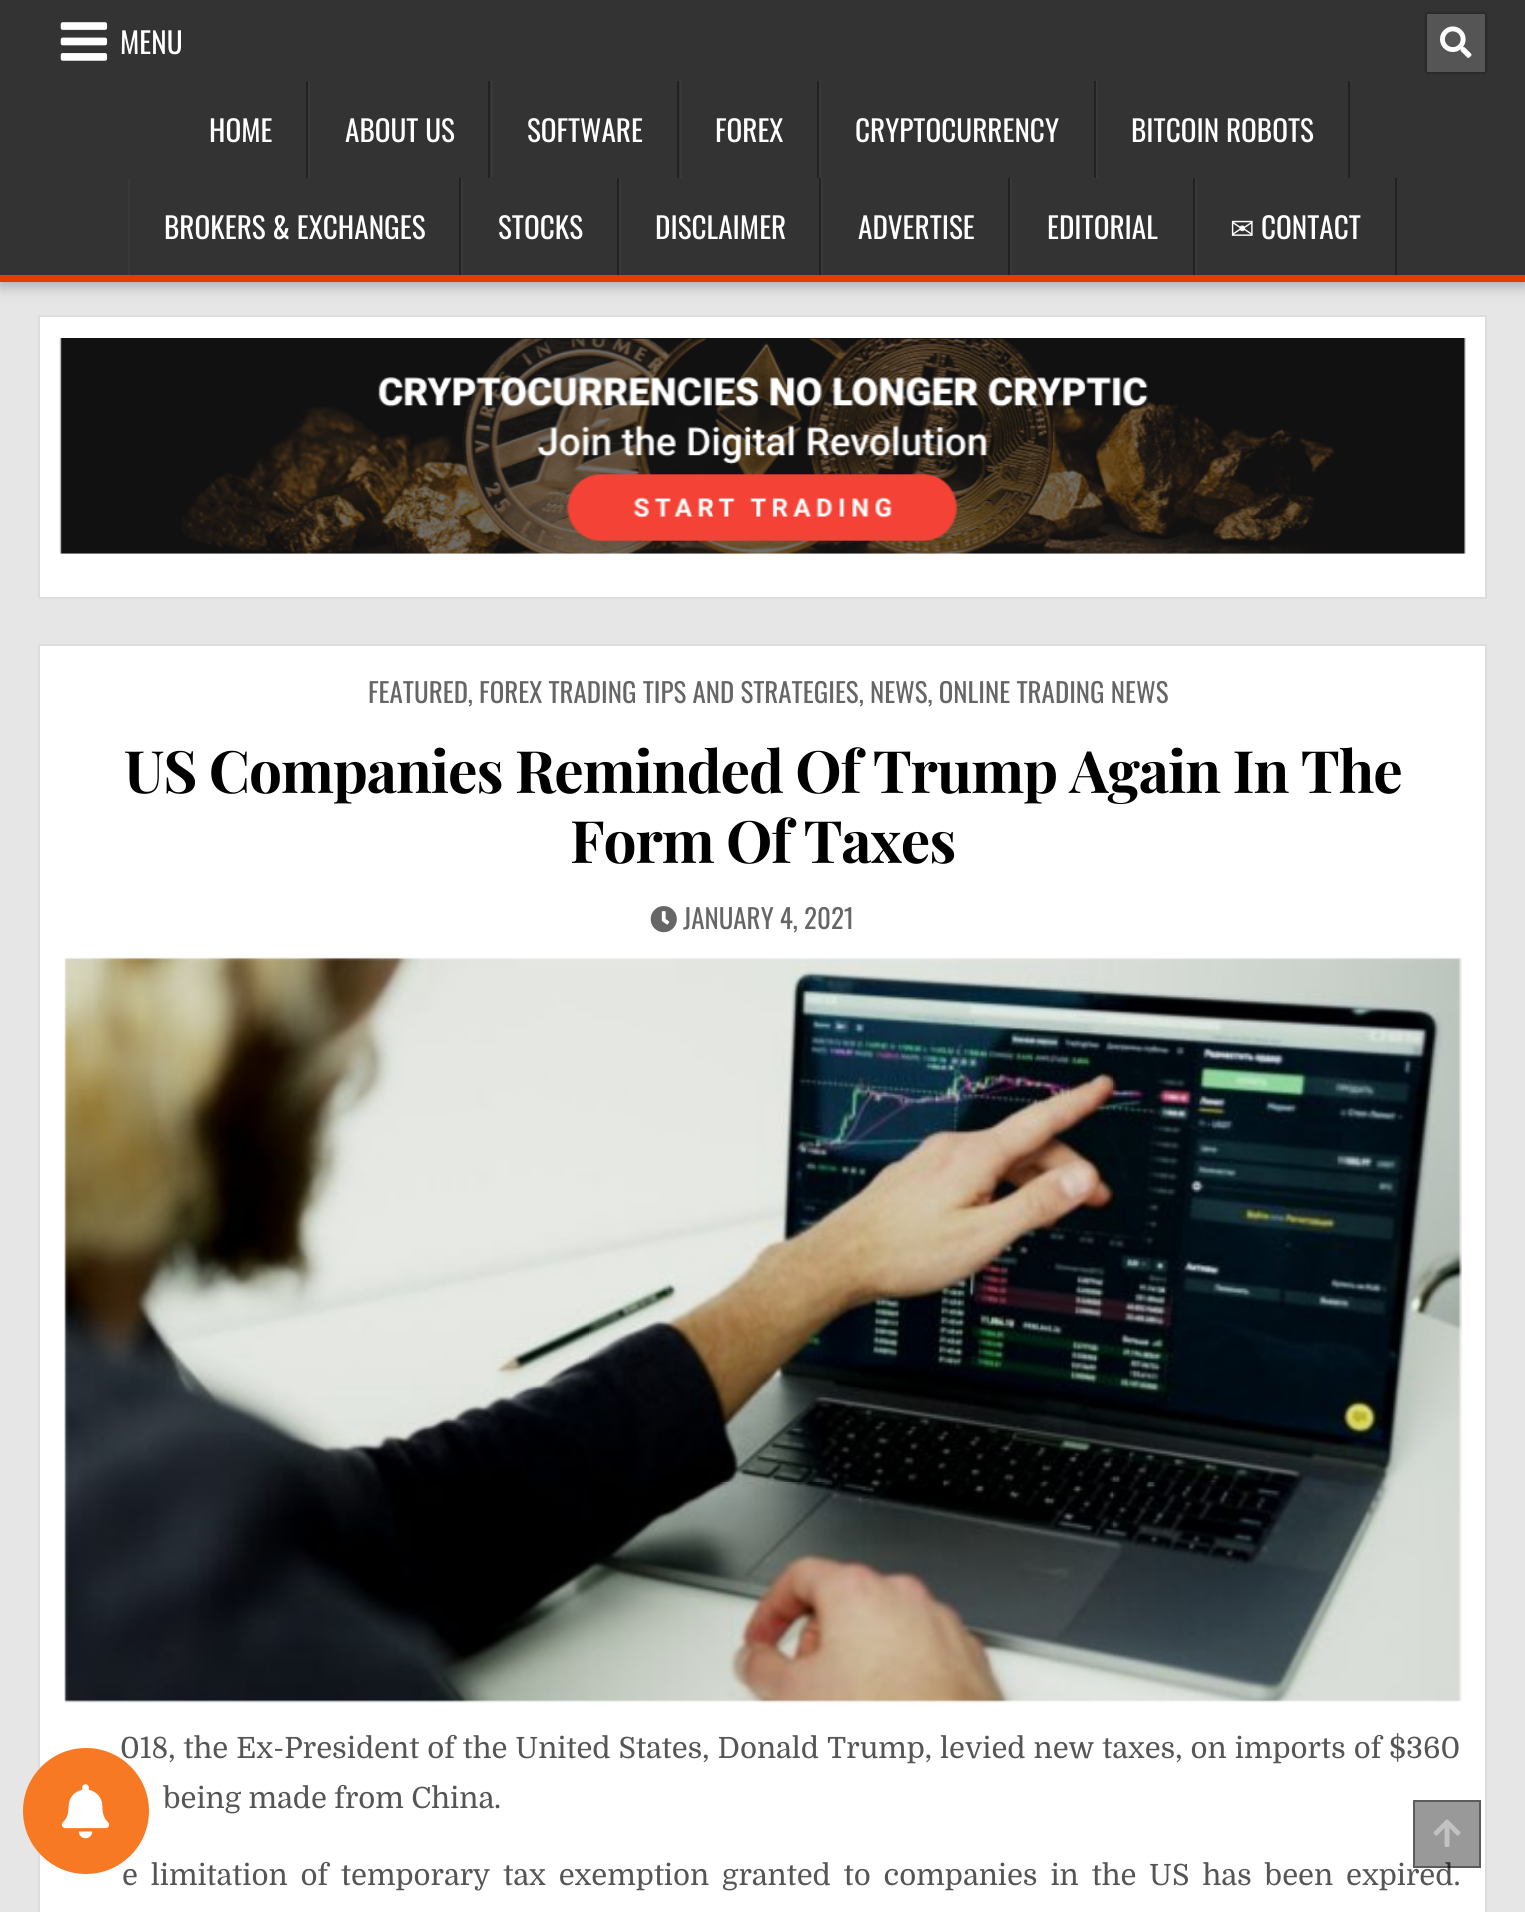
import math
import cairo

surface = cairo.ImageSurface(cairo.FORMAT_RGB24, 1525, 1912)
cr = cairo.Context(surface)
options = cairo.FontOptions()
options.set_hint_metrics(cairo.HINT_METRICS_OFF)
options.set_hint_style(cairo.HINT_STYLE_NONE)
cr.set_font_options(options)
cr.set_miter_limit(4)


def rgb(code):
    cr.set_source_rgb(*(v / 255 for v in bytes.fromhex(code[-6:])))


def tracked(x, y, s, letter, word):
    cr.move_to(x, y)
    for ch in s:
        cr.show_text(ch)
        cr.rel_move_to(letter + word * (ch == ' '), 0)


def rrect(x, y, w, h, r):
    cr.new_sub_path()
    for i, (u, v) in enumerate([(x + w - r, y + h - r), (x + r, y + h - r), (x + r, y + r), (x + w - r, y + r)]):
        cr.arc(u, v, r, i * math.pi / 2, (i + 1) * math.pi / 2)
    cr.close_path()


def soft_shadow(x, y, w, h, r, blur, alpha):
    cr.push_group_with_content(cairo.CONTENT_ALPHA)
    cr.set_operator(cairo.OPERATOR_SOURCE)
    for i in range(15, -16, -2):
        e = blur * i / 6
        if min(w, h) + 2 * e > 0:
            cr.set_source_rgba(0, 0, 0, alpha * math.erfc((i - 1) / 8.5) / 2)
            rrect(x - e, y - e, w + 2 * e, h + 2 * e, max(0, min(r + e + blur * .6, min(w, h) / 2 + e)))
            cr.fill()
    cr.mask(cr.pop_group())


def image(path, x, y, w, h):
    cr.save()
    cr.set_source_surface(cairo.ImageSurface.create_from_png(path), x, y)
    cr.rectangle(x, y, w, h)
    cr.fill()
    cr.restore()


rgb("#e6e6e6")
cr.paint()
rgb("#000000")
soft_shadow(0, 5, 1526, 281, 0, 11, 0.12)
soft_shadow(0, 5, 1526, 281, 0, 5.5, 0.16)
rgb("#333333")
cr.rectangle(0, 0, 1525, 275)
cr.fill()
rgb("#e03f00")
cr.rectangle(0, 275, 1525, 7)
cr.fill()
image("img/1.png", 60, 22, 48, 39)
rgb("#000000")
soft_shadow(1427, 14, 58, 58, 0, 2, 0.5)
rgb("#555555")
cr.rectangle(1427, 14, 58, 58)
cr.fill()
image("img/2.png", 1440, 26, 32, 32)
for x, y, w, h, color in [
    (306, 81, 2, 97, "#222222"),
    (488, 81, 2, 97, "#222222"),
    (308, 81, 2, 97, "#383838"),
    (677, 81, 2, 97, "#222222"),
    (491, 81, 2, 97, "#383838"),
    (817, 81, 2, 97, "#222222"),
    (680, 81, 2, 97, "#383838"),
    (1094, 81, 2, 97, "#222222"),
    (819, 81, 2, 97, "#383838"),
    (1348, 81, 2, 97, "#222222"),
    (1096, 81, 2, 97, "#383838"),
    (459, 178, 2, 97, "#222222"),
    (128, 178, 2, 97, "#383838"),
    (617, 178, 2, 97, "#222222"),
    (461, 178, 2, 97, "#383838"),
    (819, 178, 2, 97, "#222222"),
    (619, 178, 2, 97, "#383838"),
    (1008, 178, 2, 97, "#222222"),
    (821, 178, 2, 97, "#383838"),
    (1193, 178, 2, 97, "#222222"),
    (1010, 178, 2, 97, "#383838"),
    (1395, 178, 2, 97, "#222222"),
    (1195, 178, 2, 97, "#383838"),
]:
    rgb(color)
    cr.rectangle(x, y, w, h)
    cr.fill()
rgb("#ffffff")
cr.rectangle(39, 316, 1447, 282)
cr.fill_preserve()
rgb("#dddddd")
cr.stroke()
image("img/4.png", 59, 338, 1407, 216)
rgb("#ffffff")
cr.rectangle(39, 645, 1447, 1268)
cr.fill_preserve()
rgb("#dddddd")
cr.stroke()
image("img/5.png", 650, 906, 27, 27)
image("img/6.png", 64, 957, 1398, 746)
cr.select_font_face("Oswald")
cr.set_font_size(29.25)
rgb("#ffffff")
for x, y, s in [
    (120, 54, "MENU"),
    (209, 142, "HOME"),
    (345, 142, "ABOUT US"),
    (527, 142, "SOFTWARE"),
    (715, 142, "FOREX"),
    (855, 142, "CRYPTOCURRENCY"),
    (1131, 142, "BITCOIN ROBOTS"),
    (164, 239, "BROKERS & EXCHANGES"),
    (498, 239, "STOCKS"),
    (655, 239, "DISCLAIMER"),
    (858, 239, "ADVERTISE"),
    (1047, 239, "EDITORIAL"),
]:
    cr.move_to(x, y)
    cr.show_text(s)
cr.select_font_face("DejaVu Sans")
cr.move_to(1230, 239)
cr.show_text("✉")
cr.select_font_face("Oswald")
cr.move_to(1261, 239)
cr.show_text("CONTACT")
cr.set_font_size(27)
rgb("#666666")
cr.move_to(368, 703)
cr.show_text("FEATURED, FOREX TRADING TIPS AND STRATEGIES, NEWS, ONLINE TRADING NEWS")
cr.select_font_face("Playfair Display", cairo.FONT_SLANT_NORMAL, cairo.FONT_WEIGHT_BOLD)
cr.set_font_size(58.5)
rgb("#000000")
tracked(124, 793, "US Companies Reminded Of Trump Again In The", -1.1, 0)
tracked(570, 863, "Form Of Taxes", -1.1, 0)
cr.select_font_face("Oswald")
cr.set_font_size(27)
rgb("#666666")
cr.move_to(683, 929)
cr.show_text("JANUARY 4, 2021")
cr.select_font_face("Domine")
cr.set_font_size(29.25)
rgb("#555555")
tracked(120, 1758, "018, the Ex-President of the United States, Donald Trump, levied new taxes, on imports of $360", 0, 0.6)
cr.move_to(163, 1808)
cr.show_text("being made from China.")
tracked(122, 1885, "e limitation of temporary tax exemption granted to companies in the US has been expired.", 0, 5.5)
rgb("#f77924")
cr.new_path()
cr.arc(86, 1811, 63, 0, 2 * math.pi)
cr.fill()
image("img/3.png", 61, 1784, 49, 55)
cr.set_source_rgba(0, 0, 0, 0.4)
cr.rectangle(1413, 1800, 68, 68)
cr.fill()
cr.rectangle(1414, 1801, 66, 66)
cr.stroke()
image("img/7.png", 1433, 1819, 28, 28)
surface.write_to_png("page.png")
